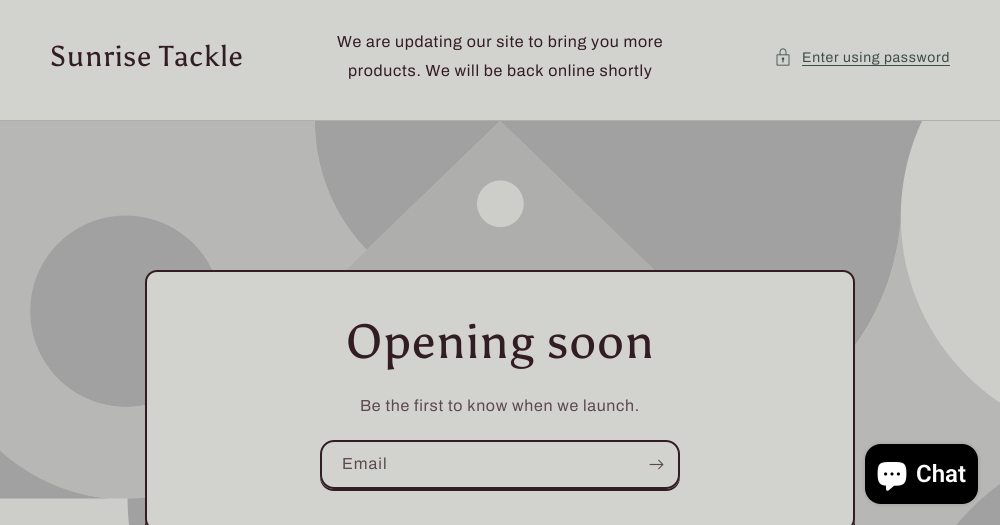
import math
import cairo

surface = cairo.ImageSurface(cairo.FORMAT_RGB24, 1000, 525)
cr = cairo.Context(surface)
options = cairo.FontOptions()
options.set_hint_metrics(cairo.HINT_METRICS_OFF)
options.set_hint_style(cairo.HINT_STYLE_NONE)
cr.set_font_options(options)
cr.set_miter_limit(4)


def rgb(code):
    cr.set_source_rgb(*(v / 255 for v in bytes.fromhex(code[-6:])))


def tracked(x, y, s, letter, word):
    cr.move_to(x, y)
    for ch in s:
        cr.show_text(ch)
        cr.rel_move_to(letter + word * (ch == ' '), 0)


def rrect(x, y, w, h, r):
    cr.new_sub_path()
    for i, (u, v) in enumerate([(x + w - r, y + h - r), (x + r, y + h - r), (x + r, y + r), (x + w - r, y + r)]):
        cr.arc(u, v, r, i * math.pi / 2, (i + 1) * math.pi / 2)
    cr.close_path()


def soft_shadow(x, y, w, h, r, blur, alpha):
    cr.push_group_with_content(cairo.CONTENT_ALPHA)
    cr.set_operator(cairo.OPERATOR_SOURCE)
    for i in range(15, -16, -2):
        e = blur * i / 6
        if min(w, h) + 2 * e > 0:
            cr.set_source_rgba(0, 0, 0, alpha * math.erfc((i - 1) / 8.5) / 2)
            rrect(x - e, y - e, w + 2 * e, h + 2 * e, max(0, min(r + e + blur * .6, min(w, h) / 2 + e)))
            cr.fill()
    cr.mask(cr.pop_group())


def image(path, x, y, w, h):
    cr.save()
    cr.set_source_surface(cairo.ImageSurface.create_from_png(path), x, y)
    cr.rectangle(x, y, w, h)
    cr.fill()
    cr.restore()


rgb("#d2d2ce")
cr.paint()
image("img/1.png", 776, 48, 14, 18)
rgb("#3d4d48")
cr.rectangle(802, 65, 148, 1)
cr.fill()
rgb("#b2aeac")
cr.rectangle(0, 120, 1000, 1)
cr.fill()
image("img/2.png", 0, 121, 1000, 404)
rgb("#d2d2ce")
rrect(146, 271, 708, 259, 11)
cr.fill_preserve()
rgb("#331d25")
cr.stroke()
cr.new_path()
cr.move_to(320, 475)
cr.line_to(320, 477)
cr.curve_to(320, 485, 326, 491, 334, 491)
cr.line_to(666, 491)
cr.curve_to(674, 491, 680, 485, 680, 477)
cr.line_to(680, 475)
cr.curve_to(680, 483, 674, 489, 666, 489)
cr.line_to(334, 489)
cr.curve_to(326, 489, 320, 483, 320, 475)
cr.close_path()
cr.fill()
rrect(321, 441, 358, 47, 13)
cr.stroke()
image("img/3.png", 649, 459, 15, 11)
cr.new_path()
cr.move_to(145, 519)
cr.line_to(145, 525)
cr.curve_to(145, 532, 150, 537, 157, 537)
cr.line_to(843, 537)
cr.curve_to(850, 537, 855, 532, 855, 525)
cr.line_to(855, 519)
cr.curve_to(855, 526, 850, 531, 843, 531)
cr.line_to(157, 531)
cr.curve_to(150, 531, 145, 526, 145, 519)
cr.close_path()
cr.fill()
rgb("#000000")
soft_shadow(865, 444, 113, 60, 16, 2.5, 0.15)
rgb("#000000")
rrect(865, 444, 113, 60, 16)
cr.fill()
image("img/4.png", 877, 462, 30, 29)
cr.select_font_face("Asul")
cr.set_font_size(28.75)
rgb("#331d25")
tracked(50, 66, "Sunrise Tackle", 0.75, 0)
cr.select_font_face("Archivo")
cr.set_font_size(16)
tracked(337, 47, "We are updating our site to bring you more", 0.7, 0)
tracked(348, 76, "products. We will be back online shortly", 0.7, 0)
cr.set_font_size(14)
rgb("#3d4d48")
tracked(802, 62, "Enter using password", 0.7, 0)
cr.select_font_face("Asul")
cr.set_font_size(48)
rgb("#331d25")
tracked(346, 358, "Opening soon", 0.75, 0)
cr.select_font_face("Archivo")
cr.set_font_size(16)
rgb("#5b4a4f")
tracked(360, 411, "Be the first to know when we launch.", 0.7, 0)
tracked(342, 469, "Email", 1, 0)
cr.select_font_face("Roboto SemiBold")
cr.set_font_size(24)
rgb("#ffffff")
cr.move_to(916, 482)
cr.show_text("Chat")
surface.write_to_png("page.png")
